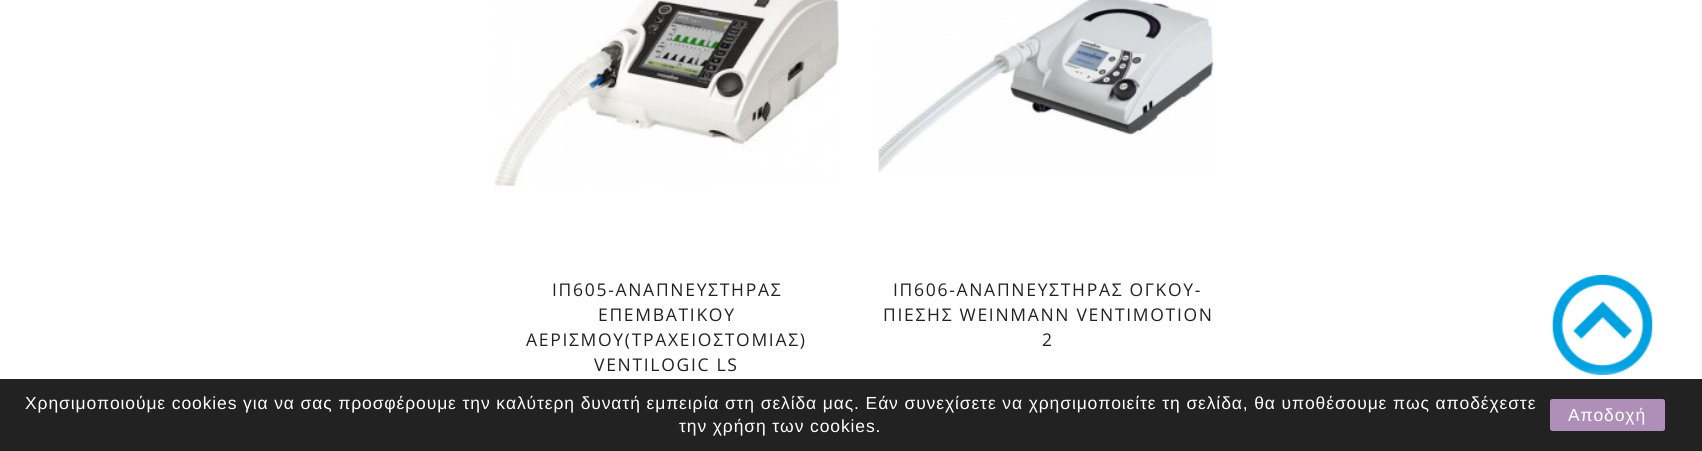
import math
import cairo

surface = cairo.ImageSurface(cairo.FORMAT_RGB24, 1702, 451)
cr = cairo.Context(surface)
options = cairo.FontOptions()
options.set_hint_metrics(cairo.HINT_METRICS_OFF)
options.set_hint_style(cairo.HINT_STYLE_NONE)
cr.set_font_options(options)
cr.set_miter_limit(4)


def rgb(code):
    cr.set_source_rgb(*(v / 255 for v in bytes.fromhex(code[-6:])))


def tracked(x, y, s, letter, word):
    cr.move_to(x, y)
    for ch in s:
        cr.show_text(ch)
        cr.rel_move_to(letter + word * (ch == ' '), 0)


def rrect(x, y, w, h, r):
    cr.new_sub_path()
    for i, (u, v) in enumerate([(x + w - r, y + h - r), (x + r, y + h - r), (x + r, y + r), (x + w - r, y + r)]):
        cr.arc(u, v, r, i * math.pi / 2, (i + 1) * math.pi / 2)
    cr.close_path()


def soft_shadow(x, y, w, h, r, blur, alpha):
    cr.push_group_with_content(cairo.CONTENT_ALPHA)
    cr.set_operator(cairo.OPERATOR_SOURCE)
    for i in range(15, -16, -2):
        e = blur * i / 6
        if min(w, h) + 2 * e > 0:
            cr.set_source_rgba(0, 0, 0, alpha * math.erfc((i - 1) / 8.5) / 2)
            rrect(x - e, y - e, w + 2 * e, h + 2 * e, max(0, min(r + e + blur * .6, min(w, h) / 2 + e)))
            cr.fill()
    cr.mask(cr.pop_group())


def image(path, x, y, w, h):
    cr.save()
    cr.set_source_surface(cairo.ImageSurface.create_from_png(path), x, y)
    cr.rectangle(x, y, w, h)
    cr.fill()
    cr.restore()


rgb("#ffffff")
cr.paint()
image("img/1.png", 495, 0, 344, 188)
image("img/2.png", 878, 0, 337, 173)
image("img/3.png", 1552, 275, 101, 100)
soft_shadow(0, 379, 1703, 72, 0, 6, 1)
rgb("#222222")
cr.rectangle(0, 379, 1702, 72)
cr.fill()
rgb("#af8fb7")
rrect(1550, 399, 115, 32, 2.5)
cr.fill()
cr.select_font_face("Open Sans")
cr.set_font_size(17.5)
rgb("#222222")
for x, y, s in [
    (552, 296, "ΙΠ605-ΑΝΑΠΝΕΥΣΤΗΡΑΣ"),
    (598, 321, "ΕΠΕΜΒΑΤΙΚΟΥ"),
    (526, 346, "ΑΕΡΙΣΜΟΥ(ΤΡΑΧΕΙΟΣΤΟΜΙΑΣ)"),
    (594, 371, "VENTILOGIC LS"),
    (893, 296, "ΙΠ606-ΑΝΑΠΝΕΥΣΤΗΡΑΣ ΟΓΚΟΥ-"),
    (883, 321, "ΠΙΕΣΗΣ WEINMANN VENTIMOTION"),
    (1042, 346, "2"),
]:
    tracked(x, y, s, 1.7, 0)
cr.select_font_face("Liberation Sans")
rgb("#ffffff")
for x, y, s in [
    (25, 409, "Χρησιμοποιούμε cookies για να σας προσφέρουμε την καλύτερη δυνατή εμπειρία στη σελίδα μας. Εάν συνεχίσετε να χρησιμοποιείτε τη σελίδα, θα υποθέσουμε πως αποδέχεστε"),
    (679, 432, "την χρήση των cookies."),
    (1568, 421, "Αποδοχή"),
]:
    tracked(x, y, s, 0.88, 0)
surface.write_to_png("page.png")
